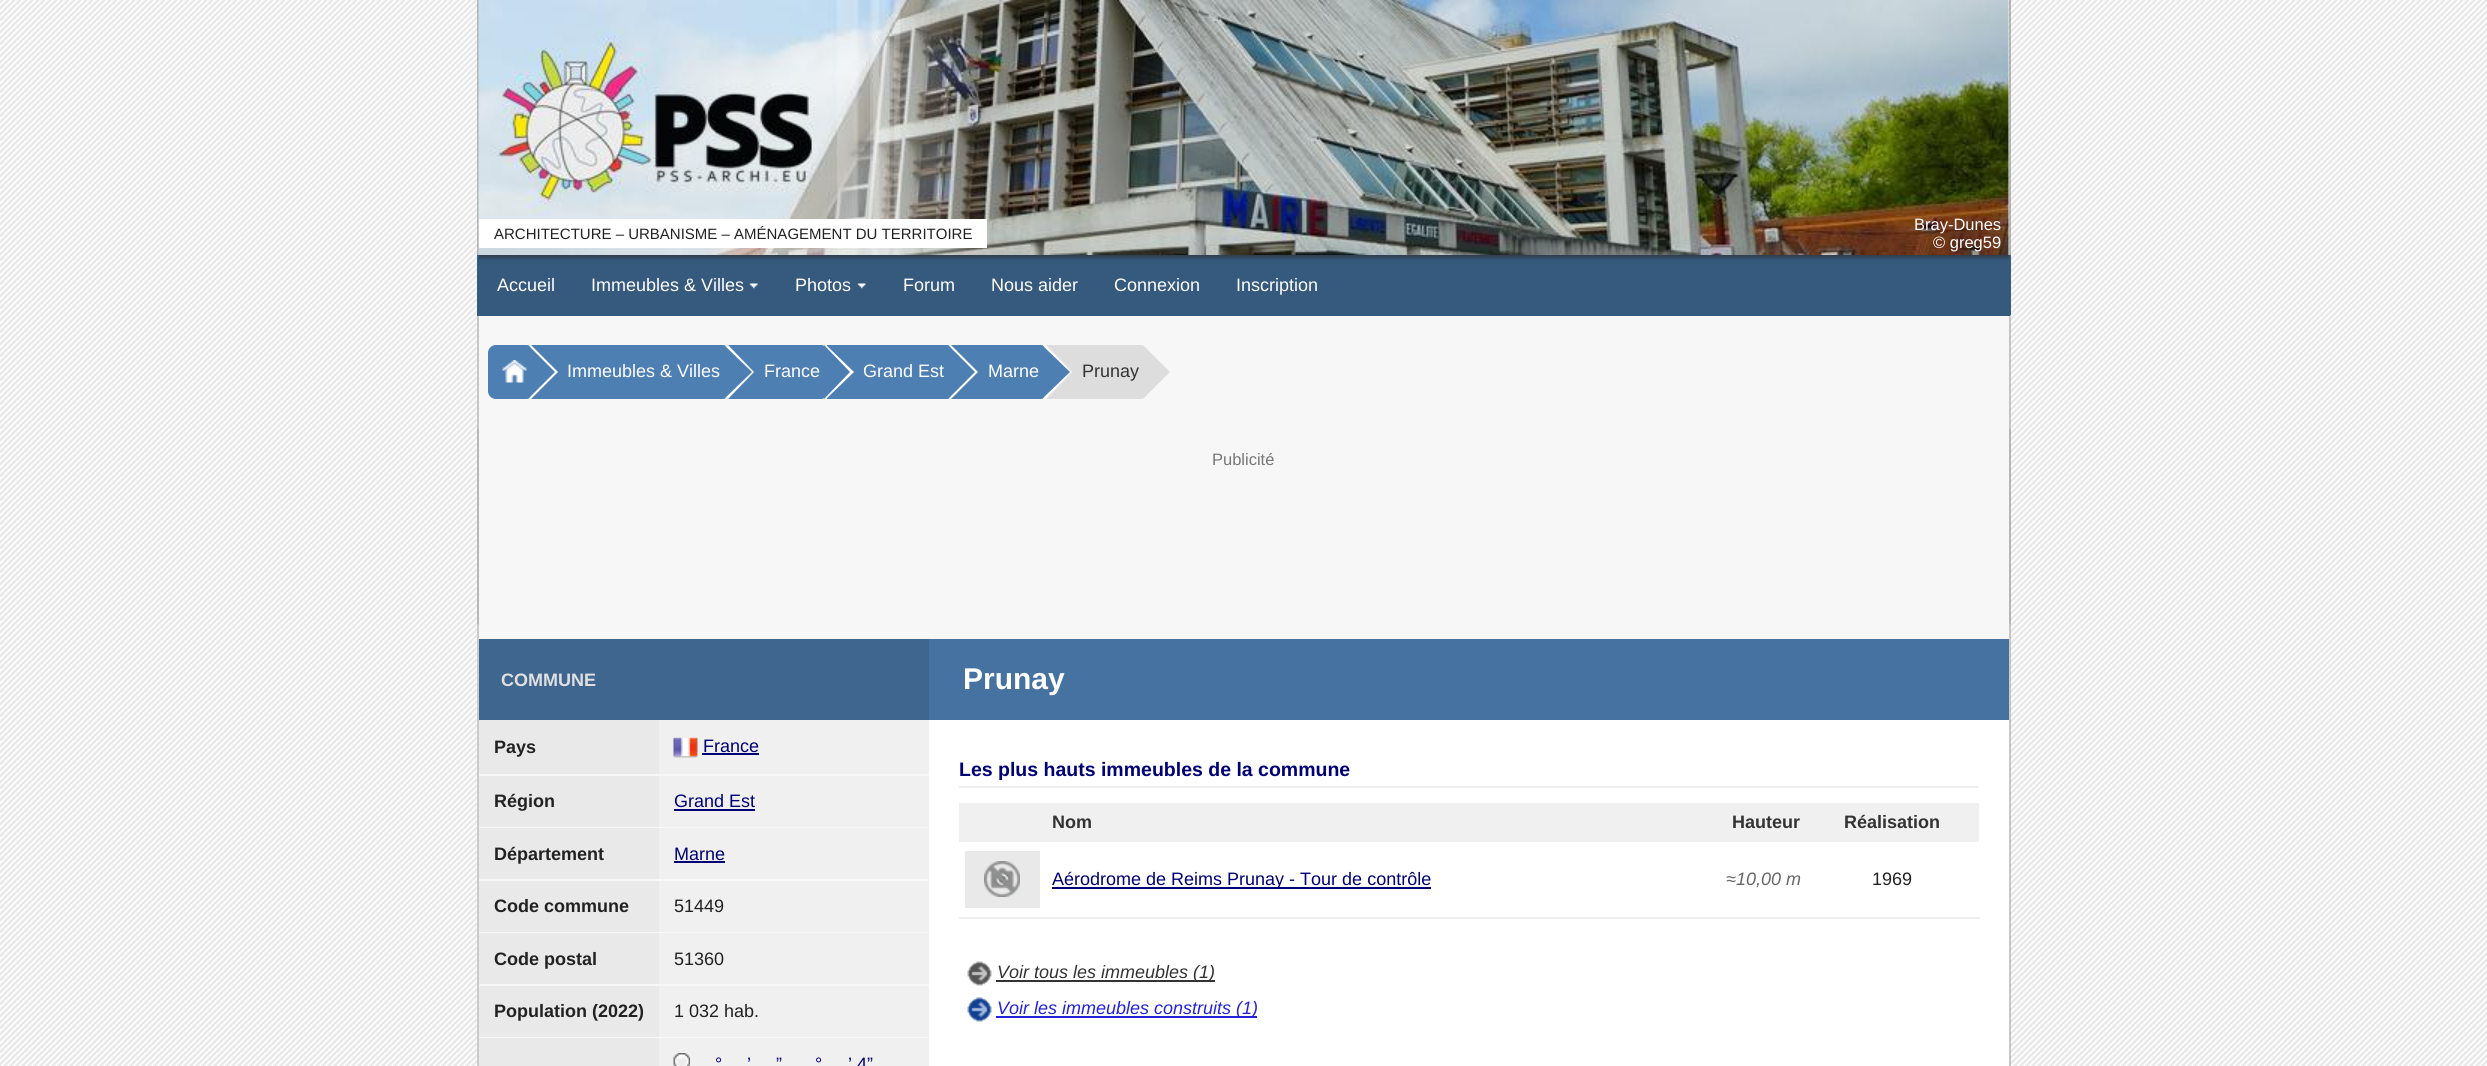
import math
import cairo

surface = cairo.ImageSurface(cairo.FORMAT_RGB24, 2487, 1066)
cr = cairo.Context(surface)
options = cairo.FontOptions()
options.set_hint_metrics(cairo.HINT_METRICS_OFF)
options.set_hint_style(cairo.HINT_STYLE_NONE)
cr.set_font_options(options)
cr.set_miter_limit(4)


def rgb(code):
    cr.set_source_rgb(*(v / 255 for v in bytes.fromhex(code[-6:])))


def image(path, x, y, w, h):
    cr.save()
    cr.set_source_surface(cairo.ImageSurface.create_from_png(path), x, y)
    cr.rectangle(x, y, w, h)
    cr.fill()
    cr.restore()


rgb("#ffffff")
cr.paint()
image("img/1.png", 0, 0, 2487, 1066)
cr.set_source_rgba(0.471, 0.471, 0.471, 0.5)
cr.rectangle(2009, 0, 2, 255)
cr.fill()
cr.rectangle(477, 0, 2, 255)
cr.fill()
image("img/2.png", 478, 0, 1531, 255)
rgb("#ffffff")
cr.rectangle(479, 219, 508, 29)
cr.fill()
gradient = cairo.LinearGradient(1244, 255, 1244, 314)
gradient.add_color_stop_rgba(0, 0.196, 0.239, 0.29, 1)
gradient.add_color_stop_rgba(0.1, 0.212, 0.349, 0.494, 1)
cr.set_source(gradient)
cr.rectangle(479, 255, 1530, 59)
cr.fill()
rgb("#36597e")
cr.rectangle(2009, 255, 2, 60)
cr.fill()
rgb("#f7f7f7")
cr.rectangle(479, 316, 1531, 308)
cr.fill()
cr.set_source_rgba(0.588, 0.588, 0.588, 0.5)
cr.rectangle(2009, 315, 2, 114)
cr.fill()
rgb("#c7c7c7")
cr.rectangle(477, 315, 2, 114)
cr.fill()
rgb("#36597e")
cr.rectangle(477, 314, 1533, 2)
cr.rectangle(477, 255, 2, 60)
cr.fill()
image("img/3.png", 749, 283, 9, 6)
image("img/4.png", 857, 283, 9, 6)
rgb("#4e7fb3")
cr.new_path()
cr.move_to(496, 345)
cr.line_to(527, 345)
cr.curve_to(528.5, 345, 530, 346.5, 530, 348)
cr.line_to(530, 396)
cr.curve_to(530, 397.5, 528.5, 399, 527, 399)
cr.line_to(496, 399)
cr.curve_to(491.5, 399, 488, 395.5, 488, 391)
cr.line_to(488, 353)
cr.curve_to(488, 348.5, 491.5, 345, 496, 345)
cr.close_path()
cr.fill()
image("img/5.png", 502, 360, 25, 23)
cr.new_path()
cr.move_to(531, 345)
cr.line_to(723, 345)
cr.curve_to(724.5, 345, 726, 346.5, 726, 348)
cr.line_to(726, 396)
cr.curve_to(726, 397.5, 724.5, 399, 723, 399)
cr.line_to(531, 399)
cr.close_path()
cr.fill()
rgb("#ffffff")
cr.new_path()
cr.move_to(531, 399)
cr.line_to(531, 345)
cr.line_to(558, 372)
cr.close_path()
cr.fill()
rgb("#4e7fb3")
cr.new_path()
cr.move_to(528, 399)
cr.line_to(528, 345)
cr.line_to(555, 372)
cr.close_path()
cr.fill()
cr.new_path()
cr.move_to(728, 345)
cr.line_to(822, 345)
cr.curve_to(823.5, 345, 825, 346.5, 825, 348)
cr.line_to(825, 396)
cr.curve_to(825, 397.5, 823.5, 399, 822, 399)
cr.line_to(728, 399)
cr.close_path()
cr.fill()
rgb("#ffffff")
cr.new_path()
cr.move_to(728, 399)
cr.line_to(728, 345)
cr.line_to(754, 372)
cr.close_path()
cr.fill()
rgb("#4e7fb3")
cr.new_path()
cr.move_to(724, 399)
cr.line_to(724, 345)
cr.line_to(752, 372)
cr.close_path()
cr.fill()
cr.new_path()
cr.move_to(827, 345)
cr.line_to(947, 345)
cr.curve_to(948.5, 345, 950, 346.5, 950, 348)
cr.line_to(950, 396)
cr.curve_to(950, 397.5, 948.5, 399, 947, 399)
cr.line_to(827, 399)
cr.close_path()
cr.fill()
rgb("#ffffff")
cr.new_path()
cr.move_to(826, 399)
cr.line_to(826, 345)
cr.line_to(854, 372)
cr.close_path()
cr.fill()
rgb("#4e7fb3")
cr.new_path()
cr.move_to(824, 399)
cr.line_to(824, 345)
cr.line_to(850, 372)
cr.close_path()
cr.fill()
cr.new_path()
cr.move_to(951, 345)
cr.line_to(1041, 345)
cr.curve_to(1042.5, 345, 1044, 346.5, 1044, 348)
cr.line_to(1044, 396)
cr.curve_to(1044, 397.5, 1042.5, 399, 1041, 399)
cr.line_to(951, 399)
cr.close_path()
cr.fill()
rgb("#ffffff")
cr.new_path()
cr.move_to(951, 399)
cr.line_to(951, 345)
cr.line_to(978, 372)
cr.close_path()
cr.fill()
rgb("#4e7fb3")
cr.new_path()
cr.move_to(948, 399)
cr.line_to(948, 345)
cr.line_to(975, 372)
cr.close_path()
cr.fill()
rgb("#dddddd")
cr.new_path()
cr.move_to(1046, 345)
cr.line_to(1140, 345)
cr.curve_to(1143, 345, 1145, 347, 1145, 350)
cr.line_to(1145, 394)
cr.curve_to(1145, 397, 1143, 399, 1140, 399)
cr.line_to(1046, 399)
cr.close_path()
cr.fill()
rgb("#ffffff")
cr.new_path()
cr.move_to(1046, 399)
cr.line_to(1046, 345)
cr.line_to(1072, 372)
cr.close_path()
cr.fill()
rgb("#4e7fb3")
cr.new_path()
cr.move_to(1042, 399)
cr.line_to(1042, 345)
cr.line_to(1070, 372)
cr.close_path()
cr.fill()
rgb("#dddddd")
cr.new_path()
cr.move_to(1143, 399)
cr.line_to(1143, 345)
cr.line_to(1170, 372)
cr.close_path()
cr.fill()
cr.set_source_rgba(0.471, 0.471, 0.471, 0.5)
cr.rectangle(2009, 429, 2, 195)
cr.fill()
rgb("#b8b8b8")
cr.rectangle(477, 429, 2, 195)
cr.fill()
rgb("#ffffff")
cr.rectangle(2009, 624, 1, 442)
cr.fill()
cr.set_source_rgba(0.588, 0.588, 0.588, 0.5)
cr.rectangle(2009, 624, 2, 442)
cr.fill()
rgb("#cbcbcb")
cr.rectangle(477, 624, 2, 442)
cr.fill()
rgb("#f7f7f7")
cr.rectangle(479, 624, 1530, 15)
cr.fill()
rgb("#3e668f")
cr.rectangle(479, 639, 450, 81)
cr.fill()
rgb("#4672a1")
cr.rectangle(929, 639, 1080, 81)
cr.fill()
rgb("#e9e9e9")
cr.rectangle(479, 720, 180, 54)
cr.fill()
rgb("#f7f7f7")
cr.rectangle(479, 774, 450, 2)
cr.fill()
rgb("#f0f0f0")
cr.rectangle(659, 720, 270, 54)
cr.fill()
image("img/6.png", 673, 737, 25, 21)
for x, y, w, h, color in [
    (702, 753, 57, 2, "#000077"),
    (479, 776, 180, 51, "#e9e9e9"),
    (479, 827, 450, 1, "#f7f7f7"),
    (659, 776, 270, 51, "#f0f0f0"),
    (674, 809, 81, 2, "#000077"),
    (479, 828, 180, 51, "#e9e9e9"),
    (479, 879, 450, 2, "#f7f7f7"),
    (659, 828, 270, 51, "#f0f0f0"),
    (674, 861, 51, 2, "#000077"),
    (479, 881, 180, 51, "#e9e9e9"),
    (479, 932, 450, 1, "#f7f7f7"),
    (659, 881, 270, 51, "#f0f0f0"),
    (479, 933, 180, 51, "#e9e9e9"),
    (479, 984, 450, 2, "#f7f7f7"),
    (659, 933, 270, 51, "#f0f0f0"),
    (479, 986, 180, 51, "#e9e9e9"),
    (479, 1037, 450, 1, "#f7f7f7"),
    (659, 986, 270, 51, "#f0f0f0"),
    (479, 1038, 180, 28, "#e9e9e9"),
    (659, 1038, 270, 28, "#f0f0f0"),
]:
    rgb(color)
    cr.rectangle(x, y, w, h)
    cr.fill()
image("img/7.png", 673, 1053, 17, 13)
for x, y, w, h, color in [
    (929, 720, 1080, 346, "#ffffff"),
    (959, 786, 1020, 2, "#f0f0f0"),
    (959, 803, 1020, 39, "#f0f0f0"),
    (965, 851, 75, 57, "#e9e9e9"),
]:
    rgb(color)
    cr.rectangle(x, y, w, h)
    cr.fill()
image("img/8.png", 984, 861, 36, 36)
rgb("#000077")
cr.rectangle(1052, 887, 379, 2)
cr.fill()
rgb("#f0f0f0")
cr.rectangle(959, 917, 1021, 2)
cr.fill()
image("img/9.png", 967, 961, 25, 25)
rgb("#333333")
cr.rectangle(996, 980, 219, 2)
cr.fill()
image("img/10.png", 967, 997, 25, 25)
rgb("#2222dd")
cr.rectangle(996, 1016, 261, 2)
cr.fill()
cr.select_font_face("Liberation Sans")
cr.set_font_size(15)
rgb("#222222")
cr.move_to(494, 239)
cr.show_text("ARCHITECTURE – URBANISME – AMÉNAGEMENT DU TERRITOIRE")
cr.set_font_size(16.5)
rgb("#ffffff")
cr.move_to(1914, 230)
cr.show_text("Bray-Dunes")
cr.move_to(1933, 248)
cr.show_text("© greg59")
cr.set_font_size(18)
for x, y, s in [
    (497, 291, "Accueil"),
    (591, 291, "Immeubles & Villes"),
    (795, 291, "Photos"),
    (903, 291, "Forum"),
    (991, 291, "Nous aider"),
    (1114, 291, "Connexion"),
    (1236, 291, "Inscription"),
    (567, 377, "Immeubles & Villes"),
    (764, 377, "France"),
    (863, 377, "Grand Est"),
    (988, 377, "Marne"),
]:
    cr.move_to(x, y)
    cr.show_text(s)
rgb("#333333")
cr.move_to(1082, 377)
cr.show_text("Prunay")
cr.set_font_size(16.5)
rgb("#777777")
cr.move_to(1212, 465)
cr.show_text("Publicité")
cr.select_font_face("Liberation Sans", cairo.FONT_SLANT_NORMAL, cairo.FONT_WEIGHT_BOLD)
cr.set_font_size(18)
rgb("#e0e0e0")
cr.move_to(501, 686)
cr.show_text("COMMUNE")
cr.set_font_size(30)
rgb("#ffffff")
cr.move_to(963, 689)
cr.show_text("Prunay")
cr.set_font_size(18)
rgb("#222222")
cr.move_to(494, 753)
cr.show_text("Pays")
cr.select_font_face("Liberation Sans")
rgb("#000077")
cr.move_to(703, 752)
cr.show_text("France")
cr.select_font_face("Liberation Sans", cairo.FONT_SLANT_NORMAL, cairo.FONT_WEIGHT_BOLD)
rgb("#222222")
cr.move_to(494, 807)
cr.show_text("Région")
cr.select_font_face("Liberation Sans")
rgb("#000077")
cr.move_to(674, 807)
cr.show_text("Grand Est")
cr.select_font_face("Liberation Sans", cairo.FONT_SLANT_NORMAL, cairo.FONT_WEIGHT_BOLD)
rgb("#222222")
cr.move_to(494, 860)
cr.show_text("Département")
cr.select_font_face("Liberation Sans")
rgb("#000077")
cr.move_to(674, 860)
cr.show_text("Marne")
cr.select_font_face("Liberation Sans", cairo.FONT_SLANT_NORMAL, cairo.FONT_WEIGHT_BOLD)
rgb("#222222")
cr.move_to(494, 912)
cr.show_text("Code commune")
cr.select_font_face("Liberation Sans")
cr.move_to(674, 912)
cr.show_text("51449")
cr.select_font_face("Liberation Sans", cairo.FONT_SLANT_NORMAL, cairo.FONT_WEIGHT_BOLD)
cr.move_to(494, 965)
cr.show_text("Code postal")
cr.select_font_face("Liberation Sans")
cr.move_to(674, 965)
cr.show_text("51360")
cr.select_font_face("Liberation Sans", cairo.FONT_SLANT_NORMAL, cairo.FONT_WEIGHT_BOLD)
cr.move_to(494, 1017)
cr.show_text("Population (2022)")
cr.select_font_face("Liberation Sans")
cr.move_to(674, 1017)
cr.show_text("1 032 hab.")
rgb("#000077")
for x, y, s in [
    (715, 1070, "°"),
    (747, 1070, "’"),
    (776, 1070, "”"),
    (815, 1070, "°"),
    (848, 1070, "’ 4”"),
]:
    cr.move_to(x, y)
    cr.show_text(s)
cr.select_font_face("Liberation Sans", cairo.FONT_SLANT_NORMAL, cairo.FONT_WEIGHT_BOLD)
cr.set_font_size(19.5)
cr.move_to(959, 776)
cr.show_text("Les plus hauts immeubles de la commune")
cr.set_font_size(18)
rgb("#333333")
for x, y, s in [
    (1052, 828, "Nom"),
    (1732, 828, "Hauteur"),
    (1844, 828, "Réalisation"),
]:
    cr.move_to(x, y)
    cr.show_text(s)
cr.select_font_face("Liberation Sans")
rgb("#000077")
cr.move_to(1052, 885)
cr.show_text("Aérodrome de Reims Prunay - Tour de contrôle")
cr.select_font_face("Liberation Sans", cairo.FONT_SLANT_ITALIC)
rgb("#666666")
cr.move_to(1726, 885)
cr.show_text("≈10,00 m")
cr.select_font_face("Liberation Sans")
rgb("#222222")
cr.move_to(1872, 885)
cr.show_text("1969")
cr.select_font_face("Liberation Sans", cairo.FONT_SLANT_ITALIC)
rgb("#333333")
cr.move_to(997, 978)
cr.show_text("Voir tous les immeubles (1)")
rgb("#2222dd")
cr.move_to(997, 1014)
cr.show_text("Voir les immeubles construits (1)")
surface.write_to_png("page.png")
